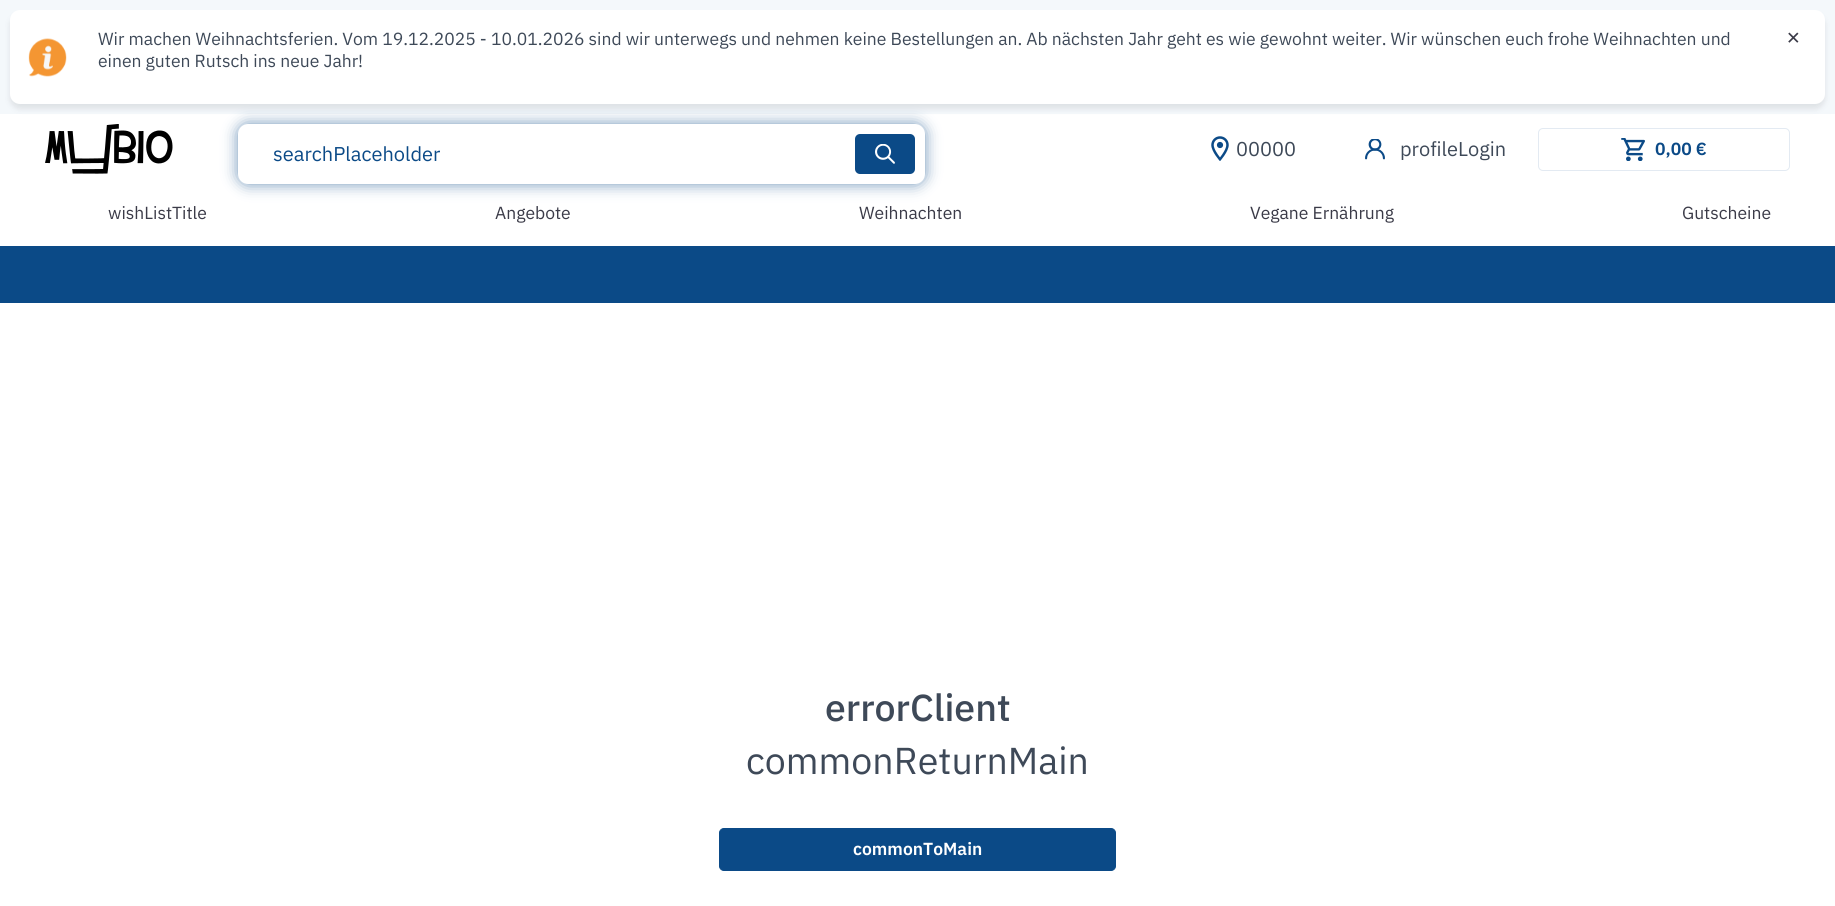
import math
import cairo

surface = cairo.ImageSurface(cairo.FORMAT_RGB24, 1835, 906)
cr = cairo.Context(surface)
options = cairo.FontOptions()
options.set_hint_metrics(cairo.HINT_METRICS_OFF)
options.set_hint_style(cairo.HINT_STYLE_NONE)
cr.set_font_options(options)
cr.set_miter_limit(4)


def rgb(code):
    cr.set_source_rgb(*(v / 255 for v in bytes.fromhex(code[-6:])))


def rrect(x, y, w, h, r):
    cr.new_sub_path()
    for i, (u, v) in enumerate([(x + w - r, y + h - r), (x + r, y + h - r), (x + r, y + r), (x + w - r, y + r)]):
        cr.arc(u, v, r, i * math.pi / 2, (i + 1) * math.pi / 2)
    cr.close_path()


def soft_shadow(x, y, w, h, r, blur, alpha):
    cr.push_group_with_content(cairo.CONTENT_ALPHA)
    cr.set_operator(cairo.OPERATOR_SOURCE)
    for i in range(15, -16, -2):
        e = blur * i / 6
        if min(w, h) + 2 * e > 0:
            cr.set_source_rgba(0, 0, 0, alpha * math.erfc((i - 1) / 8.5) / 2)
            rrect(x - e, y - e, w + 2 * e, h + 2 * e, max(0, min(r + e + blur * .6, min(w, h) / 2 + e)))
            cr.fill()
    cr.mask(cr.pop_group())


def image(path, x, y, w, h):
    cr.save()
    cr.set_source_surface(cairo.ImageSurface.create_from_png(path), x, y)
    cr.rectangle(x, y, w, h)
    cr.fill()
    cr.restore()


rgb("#ffffff")
cr.paint()
rgb("#f4f8fb")
cr.rectangle(0, 0, 1835, 114)
cr.fill()
rgb("#3b3b48")
soft_shadow(10, 15, 1815, 94, 10, 3, 0.12)
rgb("#ffffff")
rrect(10, 10, 1815, 94, 10)
cr.fill()
image("img/1.png", 28, 38, 39, 39)
image("img/2.png", 45, 124, 128, 50)
rgb("#0b4a87")
soft_shadow(238, 124, 687, 60, 10, 7.5, 0.6)
rgb("#ffffff")
rrect(238, 124, 687, 60, 10)
cr.fill()
rgb("#0b4a87")
rrect(855, 134, 60, 40, 5)
cr.fill()
image("img/3.png", 875, 144, 20, 20)
image("img/4.png", 1211, 136, 18, 25)
image("img/5.png", 1365, 139, 20, 21)
rrect(1538.5, 128.5, 251, 42, 4.5)
rgb("#e3eaf2")
cr.set_line_width(1)
cr.stroke()
image("img/6.png", 1621, 138, 24, 23)
rgb("#0b4a87")
cr.rectangle(0, 246, 1835, 57)
cr.fill()
rrect(719.5, 828.5, 396, 42, 4.5)
cr.fill_preserve()
cr.stroke()
cr.select_font_face("IBM Plex Sans")
cr.set_font_size(17.5)
rgb("#3e4958")
cr.move_to(98, 45)
cr.show_text("Wir machen Weihnachtsferien. Vom 19.12.2025 - 10.01.2026 sind wir unterwegs und nehmen keine Bestellungen an. Ab nächsten Jahr geht es wie gewohnt weiter. Wir wünschen euch frohe Weihnachten und")
cr.move_to(98, 67)
cr.show_text("einen guten Rutsch ins neue Jahr!")
cr.select_font_face("DejaVu Sans")
rgb("#3b3b48")
cr.move_to(1786, 44)
cr.show_text("✕")
cr.select_font_face("IBM Plex Sans")
cr.set_font_size(20)
rgb("#0b4a87")
cr.move_to(273, 161)
cr.show_text("searchPlaceholder")
rgb("#3e4958")
cr.move_to(1236, 156)
cr.show_text("00000")
cr.move_to(1400, 156)
cr.show_text("profileLogin")
cr.select_font_face("IBM Plex Sans SemiBold")
cr.set_font_size(17.5)
rgb("#0b4a87")
cr.move_to(1655, 155)
cr.show_text("0,00 €")
cr.select_font_face("IBM Plex Sans")
rgb("#3b3b48")
for x, y, s in [
    (108, 219, "wishListTitle"),
    (495, 219, "Angebote"),
    (859, 219, "Weihnachten"),
    (1250, 219, "Vegane Ernährung"),
    (1682, 219, "Gutscheine"),
]:
    cr.move_to(x, y)
    cr.show_text(s)
cr.select_font_face("IBM Plex Sans Medium")
cr.set_font_size(37.5)
rgb("#3e4958")
cr.move_to(825, 721)
cr.show_text("errorClient")
cr.select_font_face("IBM Plex Sans")
cr.move_to(746, 774)
cr.show_text("commonReturnMain")
cr.select_font_face("IBM Plex Sans SemiBold")
cr.set_font_size(17.5)
rgb("#ffffff")
cr.move_to(853, 855)
cr.show_text("commonToMain")
surface.write_to_png("page.png")
